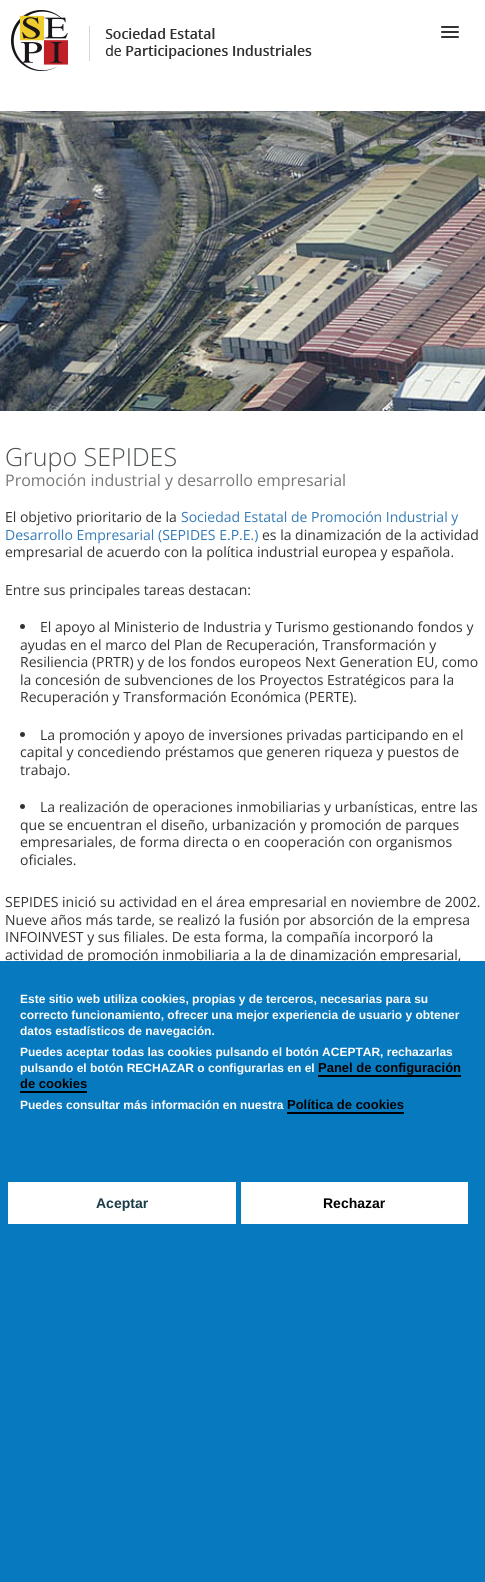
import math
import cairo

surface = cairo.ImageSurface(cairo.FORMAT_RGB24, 485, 1582)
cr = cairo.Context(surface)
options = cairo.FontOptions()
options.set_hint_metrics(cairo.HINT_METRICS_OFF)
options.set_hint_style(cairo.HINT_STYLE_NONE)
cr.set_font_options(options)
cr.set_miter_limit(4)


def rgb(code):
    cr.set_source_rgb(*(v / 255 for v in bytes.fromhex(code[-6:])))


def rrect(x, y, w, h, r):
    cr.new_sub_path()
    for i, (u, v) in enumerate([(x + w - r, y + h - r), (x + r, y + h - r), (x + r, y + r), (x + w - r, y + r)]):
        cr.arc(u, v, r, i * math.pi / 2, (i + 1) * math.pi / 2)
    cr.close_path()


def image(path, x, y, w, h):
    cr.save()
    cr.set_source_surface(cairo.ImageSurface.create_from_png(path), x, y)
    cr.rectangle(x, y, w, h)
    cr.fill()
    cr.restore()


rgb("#ffffff")
cr.paint()
image("img/1.png", 11, 10, 301, 61)
rgb("#333333")
rrect(441, 26, 18, 2, 1)
cr.fill()
rrect(441, 31, 18, 2, 1)
cr.fill()
rrect(441, 36, 18, 2, 1)
cr.fill()
image("img/2.png", 0, 111, 485, 300)
cr.arc(22.5, 626.5, 2.5, 0, 2 * math.pi)
cr.fill()
cr.arc(22.5, 734.5, 2.5, 0, 2 * math.pi)
cr.fill()
cr.arc(22.5, 806.5, 2.5, 0, 2 * math.pi)
cr.fill()
cr.select_font_face("Open Sans Light")
cr.set_font_size(25)
rgb("#4c5152")
cr.move_to(5, 466)
cr.show_text("Grupo SEPIDES")
cr.select_font_face("Open Sans")
cr.set_font_size(16)
rgb("#777777")
cr.move_to(5, 486)
cr.show_text("Promoción industrial y desarrollo empresarial")
cr.set_font_size(14)
rgb("#333333")
cr.move_to(5, 522)
cr.show_text("El objetivo prioritario de la")
rgb("#337ab7")
cr.move_to(181, 522)
cr.show_text("Sociedad Estatal de Promoción Industrial y")
cr.move_to(5, 540)
cr.show_text("Desarrollo Empresarial (SEPIDES E.P.E.)")
rgb("#333333")
for x, y, s in [
    (262, 540, "es la dinamización de la actividad"),
    (5, 557, "empresarial de acuerdo con la política industrial europea y española."),
    (5, 595, "Entre sus principales tareas destacan:"),
    (40, 632, "El apoyo al Ministerio de Industria y Turismo gestionando fondos y"),
    (20, 650, "ayudas en el marco del Plan de Recuperación, Transformación y"),
    (20, 667, "Resiliencia (PRTR) y de los fondos europeos Next Generation EU, como"),
    (20, 685, "la concesión de subvenciones de los Proyectos Estratégicos para la"),
    (20, 702, "Recuperación y Transformación Económica (PERTE)."),
    (40, 740, "La promoción y apoyo de inversiones privadas participando en el"),
    (20, 757, "capital y concediendo préstamos que generen riqueza y puestos de"),
    (20, 775, "trabajo."),
    (40, 812, "La realización de operaciones inmobiliarias y urbanísticas, entre las"),
    (20, 830, "que se encuentran el diseño, urbanización y promoción de parques"),
    (20, 847, "empresariales, de forma directa o en cooperación con organismos"),
    (20, 865, "oficiales."),
    (5, 907, "SEPIDES inició su actividad en el área empresarial en noviembre de 2002."),
    (5, 925, "Nueve años más tarde, se realizó la fusión por absorción de la empresa"),
    (5, 942, "INFOINVEST y sus filiales. De esta forma, la compañía incorporó la"),
    (5, 960, "actividad de promoción inmobiliaria a la de dinamización empresarial,"),
]:
    cr.move_to(x, y)
    cr.show_text(s)
rgb("#0779bf")
cr.rectangle(0, 961, 485, 621)
cr.fill()
cr.select_font_face("Liberation Sans", cairo.FONT_SLANT_NORMAL, cairo.FONT_WEIGHT_BOLD)
cr.set_font_size(12)
rgb("#ffffff")
for x, y, s in [
    (20, 1003, "Este sitio web utiliza cookies, propias y de terceros, necesarias para su"),
    (20, 1019, "correcto funcionamiento, ofrecer una mejor experiencia de usuario y obtener"),
    (20, 1035, "datos estadísticos de navegación."),
    (20, 1056, "Puedes aceptar todas las cookies pulsando el botón ACEPTAR, rechazarlas"),
    (20, 1072, "pulsando el botón RECHAZAR o configurarlas en el"),
]:
    cr.move_to(x, y)
    cr.show_text(s)
cr.set_font_size(13)
rgb("#000000")
cr.move_to(318, 1072)
cr.show_text("Panel de configuración")
cr.rectangle(318, 1075, 143, 2)
cr.fill()
cr.move_to(20, 1088)
cr.show_text("de cookies")
cr.rectangle(20, 1091, 67, 2)
cr.fill()
cr.set_font_size(12)
rgb("#ffffff")
cr.move_to(20, 1109)
cr.show_text("Puedes consultar más información en nuestra")
cr.set_font_size(13)
rgb("#000000")
cr.move_to(287, 1109)
cr.show_text("Política de cookies")
cr.rectangle(287, 1112, 117, 2)
cr.fill()
rgb("#ffffff")
cr.rectangle(8, 1182, 228, 42)
cr.fill()
cr.set_font_size(14)
rgb("#1a3b47")
cr.move_to(96, 1208)
cr.show_text("Aceptar")
rgb("#ffffff")
cr.rectangle(241, 1182, 227, 42)
cr.fill()
rgb("#000000")
cr.move_to(323, 1208)
cr.show_text("Rechazar")
surface.write_to_png("page.png")
